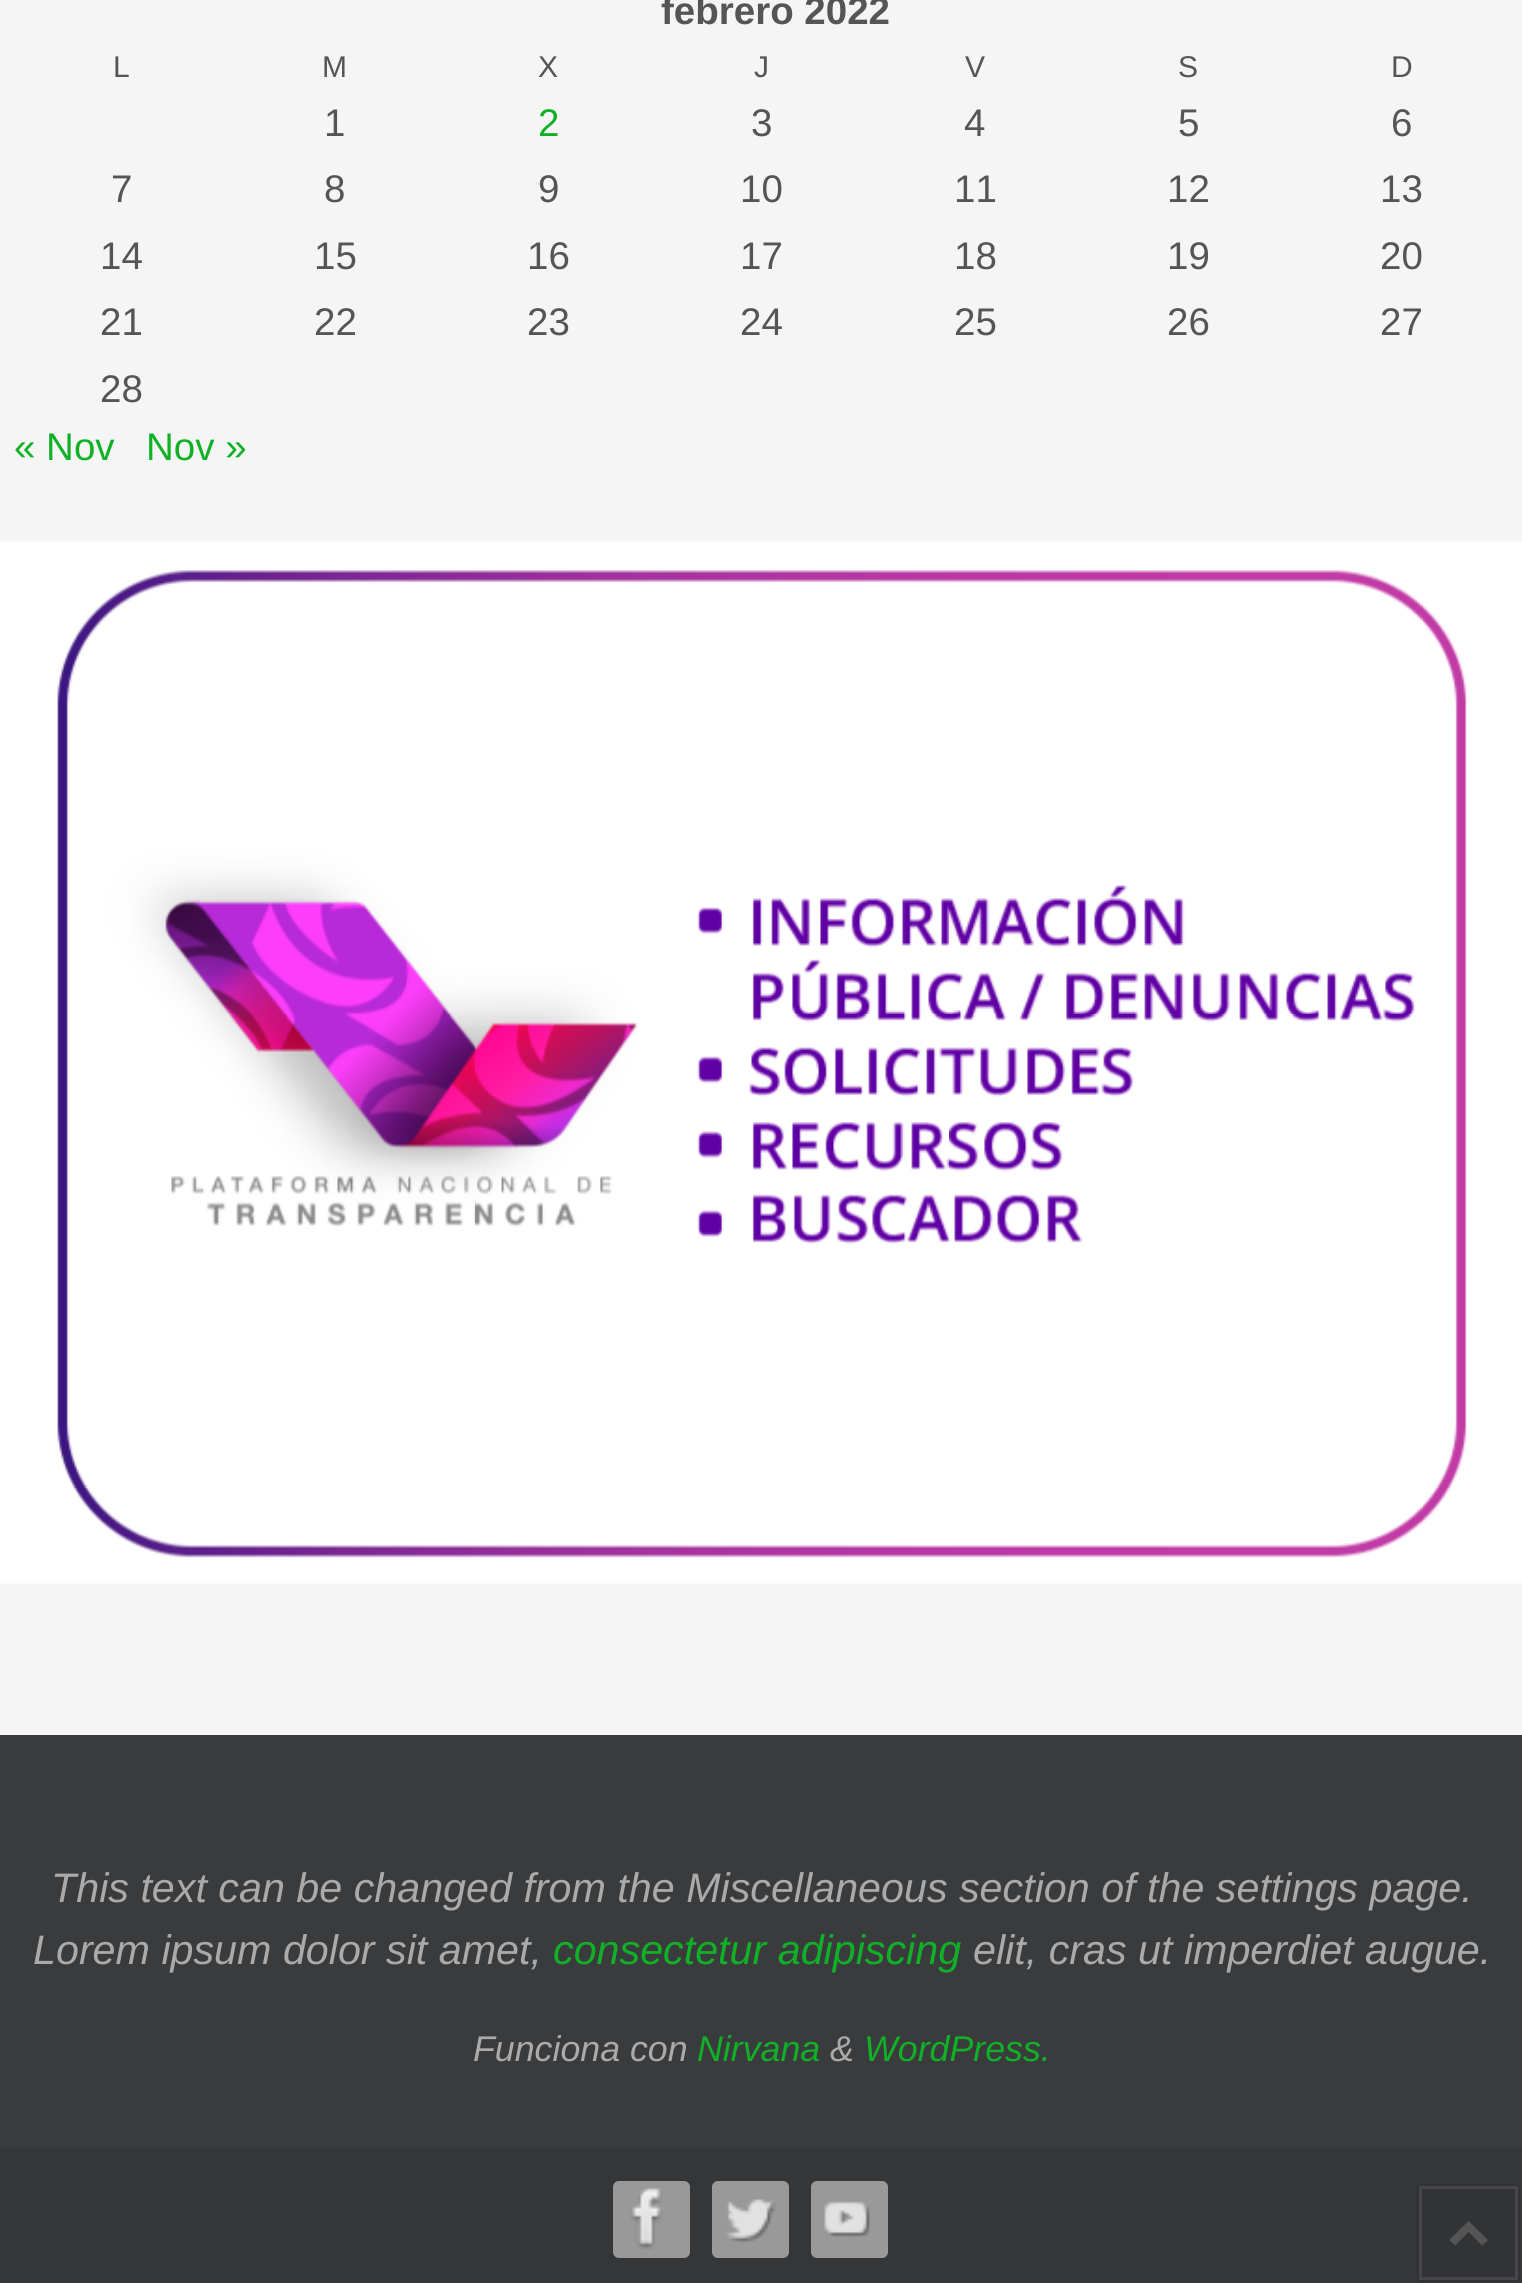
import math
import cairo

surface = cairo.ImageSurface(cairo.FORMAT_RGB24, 1522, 2283)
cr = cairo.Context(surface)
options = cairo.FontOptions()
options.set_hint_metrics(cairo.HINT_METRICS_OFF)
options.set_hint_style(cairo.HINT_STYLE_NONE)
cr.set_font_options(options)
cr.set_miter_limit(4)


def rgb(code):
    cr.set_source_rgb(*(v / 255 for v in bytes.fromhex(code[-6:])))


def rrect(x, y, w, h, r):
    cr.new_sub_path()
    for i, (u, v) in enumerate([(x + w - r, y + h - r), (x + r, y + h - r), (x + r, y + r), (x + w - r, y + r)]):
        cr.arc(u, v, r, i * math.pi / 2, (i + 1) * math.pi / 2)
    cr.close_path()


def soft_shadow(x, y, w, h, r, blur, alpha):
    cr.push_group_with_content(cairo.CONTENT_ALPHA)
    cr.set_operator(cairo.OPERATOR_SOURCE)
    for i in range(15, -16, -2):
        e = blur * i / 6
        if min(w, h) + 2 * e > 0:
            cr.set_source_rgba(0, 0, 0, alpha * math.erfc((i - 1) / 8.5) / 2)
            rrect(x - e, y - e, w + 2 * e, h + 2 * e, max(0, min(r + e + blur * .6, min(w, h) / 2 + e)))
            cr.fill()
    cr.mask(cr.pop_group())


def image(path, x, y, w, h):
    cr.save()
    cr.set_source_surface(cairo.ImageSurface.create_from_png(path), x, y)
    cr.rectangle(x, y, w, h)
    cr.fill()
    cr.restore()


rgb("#f5f5f5")
cr.paint()
image("img/1.png", 0, 541, 1522, 1043)
rgb("#3a3b3d")
cr.rectangle(0, 1735, 1522, 413)
cr.fill()
rgb("#353638")
cr.rectangle(0, 2148, 1522, 135)
cr.fill()
rgb("#999999")
rrect(613, 2181, 77, 77, 6)
cr.fill()
image("img/2.png", 630, 2188, 33, 62)
rrect(712, 2181, 77, 77, 6)
cr.fill()
image("img/3.png", 726, 2199, 50, 43)
rrect(811, 2181, 77, 77, 6)
cr.fill()
image("img/4.png", 824, 2201, 46, 36)
rgb("#000000")
soft_shadow(1419, 2186, 99, 94, 0, 1.5, 0.28)
rgb("#323335")
cr.rectangle(1420.5, 2187.5, 96, 91)
cr.fill_preserve()
rgb("#474749")
cr.set_line_width(3)
cr.stroke()
rgb("#555555")
cr.new_path()
cr.move_to(1449, 2240)
cr.line_to(1468.5, 2221)
cr.line_to(1488, 2240)
cr.line_to(1482, 2245.5)
cr.line_to(1468.5, 2232)
cr.line_to(1455, 2245.5)
cr.close_path()
cr.fill()
cr.select_font_face("Liberation Sans", cairo.FONT_SLANT_NORMAL, cairo.FONT_WEIGHT_BOLD)
cr.set_font_size(38.5)
cr.move_to(661, 24)
cr.show_text("febrero 2022")
cr.select_font_face("Liberation Sans")
cr.set_font_size(30)
for x, y, s in [
    (113, 77, "L"),
    (322, 77, "M"),
    (538, 77, "X"),
    (754, 77, "J"),
    (965, 77, "V"),
    (1178, 77, "S"),
    (1391, 77, "D"),
]:
    cr.move_to(x, y)
    cr.show_text(s)
cr.set_font_size(38.5)
cr.move_to(324, 136)
cr.show_text("1")
rgb("#10b127")
cr.move_to(538, 136)
cr.show_text("2")
rgb("#555555")
for x, y, s in [
    (751, 136, "3"),
    (964, 136, "4"),
    (1178, 136, "5"),
    (1391, 136, "6"),
    (111, 202, "7"),
    (324, 202, "8"),
    (538, 202, "9"),
    (740, 202, "10"),
    (954, 202, "11"),
    (1167, 202, "12"),
    (1380, 202, "13"),
    (100, 269, "14"),
    (314, 269, "15"),
    (527, 269, "16"),
    (740, 269, "17"),
    (954, 269, "18"),
    (1167, 269, "19"),
    (1380, 269, "20"),
    (100, 335, "21"),
    (314, 335, "22"),
    (527, 335, "23"),
    (740, 335, "24"),
    (954, 335, "25"),
    (1167, 335, "26"),
    (1380, 335, "27"),
    (100, 402, "28"),
]:
    cr.move_to(x, y)
    cr.show_text(s)
rgb("#10b127")
cr.move_to(14, 460)
cr.show_text("« Nov")
cr.move_to(146, 460)
cr.show_text("Nov »")
cr.select_font_face("Liberation Sans", cairo.FONT_SLANT_ITALIC)
cr.set_font_size(41.25)
rgb("#aaaaaa")
cr.move_to(51, 1902)
cr.show_text("This text can be changed from the Miscellaneous section of the settings page.")
cr.move_to(33, 1964)
cr.show_text("Lorem ipsum dolor sit amet,")
rgb("#10b127")
cr.move_to(553, 1964)
cr.show_text("consectetur adipiscing")
rgb("#aaaaaa")
cr.move_to(973, 1964)
cr.show_text("elit, cras ut imperdiet augue.")
cr.set_font_size(35.75)
cr.move_to(473, 2061)
cr.show_text("Funciona con")
rgb("#10b127")
cr.move_to(697, 2061)
cr.show_text("Nirvana")
rgb("#aaaaaa")
cr.move_to(830, 2061)
cr.show_text("&")
rgb("#10b127")
cr.move_to(864, 2061)
cr.show_text("WordPress.")
surface.write_to_png("page.png")
